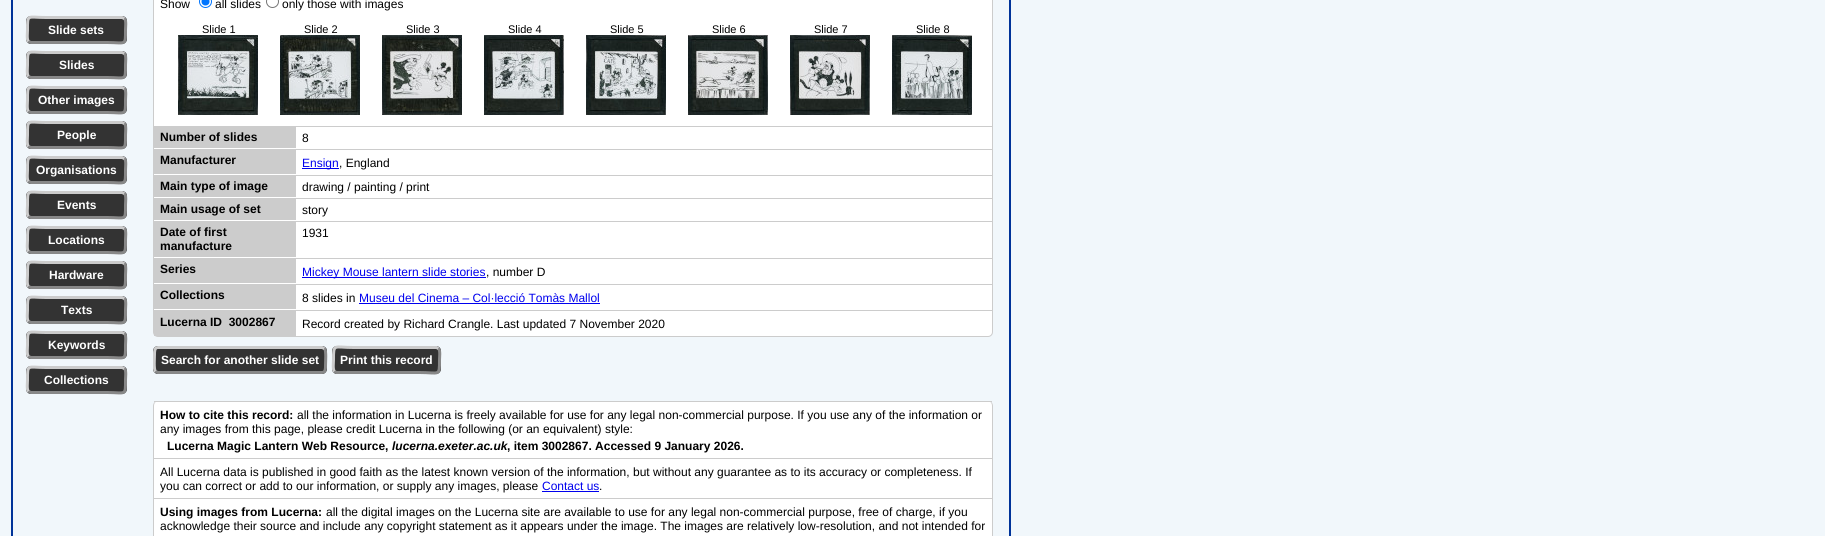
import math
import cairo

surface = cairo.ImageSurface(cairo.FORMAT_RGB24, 1825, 536)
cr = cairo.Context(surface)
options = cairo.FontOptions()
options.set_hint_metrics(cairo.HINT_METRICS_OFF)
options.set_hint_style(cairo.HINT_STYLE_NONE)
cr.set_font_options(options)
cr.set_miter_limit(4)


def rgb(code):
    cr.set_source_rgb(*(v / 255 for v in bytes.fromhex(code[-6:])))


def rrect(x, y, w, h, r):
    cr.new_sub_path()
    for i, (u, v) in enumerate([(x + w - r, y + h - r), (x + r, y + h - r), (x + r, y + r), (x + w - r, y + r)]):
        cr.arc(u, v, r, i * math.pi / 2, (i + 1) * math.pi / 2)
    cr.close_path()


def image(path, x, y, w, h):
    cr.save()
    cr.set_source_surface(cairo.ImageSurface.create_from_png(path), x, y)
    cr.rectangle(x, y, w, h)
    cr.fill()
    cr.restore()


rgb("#f1f7fb")
cr.paint()
cr.rectangle(12, -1, 998, 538)
rgb("#003399")
cr.stroke()
rgb("#333333")
rrect(26, 16, 101, 28, 5)
cr.fill()
cr.new_path()
cr.move_to(124.5, 18.5)
cr.curve_to(126.5, 20.5, 125.5, 27.5, 125.5, 30)
cr.curve_to(125.5, 46.5, 126, 42.5, 107, 42.5)
cr.line_to(31, 42.5)
cr.line_to(28.5, 41.5)
rgb("#888888")
cr.set_line_width(3)
cr.stroke()
cr.new_path()
cr.move_to(28.5, 41.5)
cr.curve_to(26.5, 39.5, 27.5, 32.5, 27.5, 30)
cr.curve_to(27.5, 13.5, 27, 17.5, 46, 17.5)
cr.line_to(122, 17.5)
cr.line_to(124.5, 18.5)
rgb("#cccccc")
cr.stroke()
rgb("#333333")
rrect(26, 51, 101, 28, 5)
cr.fill()
cr.new_path()
cr.move_to(124.5, 53.5)
cr.curve_to(126.5, 55.5, 125.5, 62.5, 125.5, 65)
cr.curve_to(125.5, 81.5, 126, 77.5, 107, 77.5)
cr.line_to(31, 77.5)
cr.line_to(28.5, 76.5)
rgb("#888888")
cr.stroke()
cr.new_path()
cr.move_to(28.5, 76.5)
cr.curve_to(26.5, 74.5, 27.5, 67.5, 27.5, 65)
cr.curve_to(27.5, 48.5, 27, 52.5, 46, 52.5)
cr.line_to(122, 52.5)
cr.line_to(124.5, 53.5)
rgb("#cccccc")
cr.stroke()
rgb("#333333")
rrect(26, 86, 101, 28, 5)
cr.fill()
cr.new_path()
cr.move_to(124.5, 88.5)
cr.curve_to(126.5, 90.5, 125.5, 97.5, 125.5, 100)
cr.curve_to(125.5, 116.5, 126, 112.5, 107, 112.5)
cr.line_to(31, 112.5)
cr.line_to(28.5, 111.5)
rgb("#888888")
cr.stroke()
cr.new_path()
cr.move_to(28.5, 111.5)
cr.curve_to(26.5, 109.5, 27.5, 102.5, 27.5, 100)
cr.curve_to(27.5, 83.5, 27, 87.5, 46, 87.5)
cr.line_to(122, 87.5)
cr.line_to(124.5, 88.5)
rgb("#cccccc")
cr.stroke()
rgb("#333333")
rrect(26, 121, 101, 28, 5)
cr.fill()
cr.new_path()
cr.move_to(124.5, 123.5)
cr.curve_to(126.5, 125.5, 125.5, 132.5, 125.5, 135)
cr.curve_to(125.5, 151.5, 126, 147.5, 107, 147.5)
cr.line_to(31, 147.5)
cr.line_to(28.5, 146.5)
rgb("#888888")
cr.stroke()
cr.new_path()
cr.move_to(28.5, 146.5)
cr.curve_to(26.5, 144.5, 27.5, 137.5, 27.5, 135)
cr.curve_to(27.5, 118.5, 27, 122.5, 46, 122.5)
cr.line_to(122, 122.5)
cr.line_to(124.5, 123.5)
rgb("#cccccc")
cr.stroke()
rgb("#333333")
rrect(26, 156, 101, 28, 5)
cr.fill()
cr.new_path()
cr.move_to(124.5, 158.5)
cr.curve_to(126.5, 160.5, 125.5, 167.5, 125.5, 170)
cr.curve_to(125.5, 186.5, 126, 182.5, 107, 182.5)
cr.line_to(31, 182.5)
cr.line_to(28.5, 181.5)
rgb("#888888")
cr.stroke()
cr.new_path()
cr.move_to(28.5, 181.5)
cr.curve_to(26.5, 179.5, 27.5, 172.5, 27.5, 170)
cr.curve_to(27.5, 153.5, 27, 157.5, 46, 157.5)
cr.line_to(122, 157.5)
cr.line_to(124.5, 158.5)
rgb("#cccccc")
cr.stroke()
rgb("#333333")
rrect(26, 191, 101, 28, 5)
cr.fill()
cr.new_path()
cr.move_to(124.5, 193.5)
cr.curve_to(126.5, 195.5, 125.5, 202.5, 125.5, 205)
cr.curve_to(125.5, 221.5, 126, 217.5, 107, 217.5)
cr.line_to(31, 217.5)
cr.line_to(28.5, 216.5)
rgb("#888888")
cr.stroke()
cr.new_path()
cr.move_to(28.5, 216.5)
cr.curve_to(26.5, 214.5, 27.5, 207.5, 27.5, 205)
cr.curve_to(27.5, 188.5, 27, 192.5, 46, 192.5)
cr.line_to(122, 192.5)
cr.line_to(124.5, 193.5)
rgb("#cccccc")
cr.stroke()
rgb("#333333")
rrect(26, 226, 101, 28, 5)
cr.fill()
cr.new_path()
cr.move_to(124.5, 228.5)
cr.curve_to(126.5, 230.5, 125.5, 237.5, 125.5, 240)
cr.curve_to(125.5, 256.5, 126, 252.5, 107, 252.5)
cr.line_to(31, 252.5)
cr.line_to(28.5, 251.5)
rgb("#888888")
cr.stroke()
cr.new_path()
cr.move_to(28.5, 251.5)
cr.curve_to(26.5, 249.5, 27.5, 242.5, 27.5, 240)
cr.curve_to(27.5, 223.5, 27, 227.5, 46, 227.5)
cr.line_to(122, 227.5)
cr.line_to(124.5, 228.5)
rgb("#cccccc")
cr.stroke()
rgb("#333333")
rrect(26, 261, 101, 28, 5)
cr.fill()
cr.new_path()
cr.move_to(124.5, 263.5)
cr.curve_to(126.5, 265.5, 125.5, 272.5, 125.5, 275)
cr.curve_to(125.5, 291.5, 126, 287.5, 107, 287.5)
cr.line_to(31, 287.5)
cr.line_to(28.5, 286.5)
rgb("#888888")
cr.stroke()
cr.new_path()
cr.move_to(28.5, 286.5)
cr.curve_to(26.5, 284.5, 27.5, 277.5, 27.5, 275)
cr.curve_to(27.5, 258.5, 27, 262.5, 46, 262.5)
cr.line_to(122, 262.5)
cr.line_to(124.5, 263.5)
rgb("#cccccc")
cr.stroke()
rgb("#333333")
rrect(26, 296, 101, 28, 5)
cr.fill()
cr.new_path()
cr.move_to(124.5, 298.5)
cr.curve_to(126.5, 300.5, 125.5, 307.5, 125.5, 310)
cr.curve_to(125.5, 326.5, 126, 322.5, 107, 322.5)
cr.line_to(31, 322.5)
cr.line_to(28.5, 321.5)
rgb("#888888")
cr.stroke()
cr.new_path()
cr.move_to(28.5, 321.5)
cr.curve_to(26.5, 319.5, 27.5, 312.5, 27.5, 310)
cr.curve_to(27.5, 293.5, 27, 297.5, 46, 297.5)
cr.line_to(122, 297.5)
cr.line_to(124.5, 298.5)
rgb("#cccccc")
cr.stroke()
rgb("#333333")
rrect(26, 331, 101, 28, 5)
cr.fill()
cr.new_path()
cr.move_to(124.5, 333.5)
cr.curve_to(126.5, 335.5, 125.5, 342.5, 125.5, 345)
cr.curve_to(125.5, 361.5, 126, 357.5, 107, 357.5)
cr.line_to(31, 357.5)
cr.line_to(28.5, 356.5)
rgb("#888888")
cr.stroke()
cr.new_path()
cr.move_to(28.5, 356.5)
cr.curve_to(26.5, 354.5, 27.5, 347.5, 27.5, 345)
cr.curve_to(27.5, 328.5, 27, 332.5, 46, 332.5)
cr.line_to(122, 332.5)
cr.line_to(124.5, 333.5)
rgb("#cccccc")
cr.stroke()
rgb("#333333")
rrect(26, 366, 101, 28, 5)
cr.fill()
cr.new_path()
cr.move_to(124.5, 368.5)
cr.curve_to(126.5, 370.5, 125.5, 377.5, 125.5, 380)
cr.curve_to(125.5, 396.5, 126, 392.5, 107, 392.5)
cr.line_to(31, 392.5)
cr.line_to(28.5, 391.5)
rgb("#888888")
cr.stroke()
cr.new_path()
cr.move_to(28.5, 391.5)
cr.curve_to(26.5, 389.5, 27.5, 382.5, 27.5, 380)
cr.curve_to(27.5, 363.5, 27, 367.5, 46, 367.5)
cr.line_to(122, 367.5)
cr.line_to(124.5, 368.5)
rgb("#cccccc")
cr.stroke()
for x, y, w, h, color in [
    (154, 0, 838, 126, "#ffffff"),
    (992, 0, 1, 310, "#cccccc"),
    (153, 0, 1, 310, "#cccccc"),
]:
    rgb(color)
    cr.rectangle(x, y, w, h)
    cr.fill()
cr.arc(205.5, 1.5, 6, 0, 2 * math.pi)
rgb("#0075ff")
cr.set_line_width(1)
cr.stroke()
cr.arc(205.5, 1.5, 4, 0, 2 * math.pi)
cr.fill()
cr.arc(272.5, 1.5, 6, 0, 2 * math.pi)
rgb("#767676")
cr.stroke()
image("img/1.png", 178, 35, 80, 80)
image("img/2.png", 280, 35, 80, 80)
image("img/3.png", 382, 35, 80, 80)
image("img/4.png", 484, 35, 80, 80)
image("img/5.png", 586, 35, 80, 80)
image("img/6.png", 688, 35, 80, 80)
image("img/7.png", 790, 35, 80, 80)
image("img/8.png", 892, 35, 80, 80)
for x, y, w, h, color in [
    (296, 127, 696, 183, "#ffffff"),
    (154, 126, 142, 22, "#cccccc"),
    (154, 148, 142, 1, "#ffffff"),
    (296, 126, 696, 1, "#cccccc"),
    (154, 149, 142, 25, "#cccccc"),
    (154, 174, 142, 1, "#ffffff"),
    (296, 149, 696, 1, "#cccccc"),
    (302, 168, 37, 1, "#0000ee"),
    (154, 175, 142, 22, "#cccccc"),
    (154, 197, 142, 1, "#ffffff"),
    (296, 175, 696, 1, "#cccccc"),
    (154, 198, 142, 22, "#cccccc"),
    (154, 220, 142, 1, "#ffffff"),
    (296, 198, 696, 1, "#cccccc"),
    (154, 221, 142, 36, "#cccccc"),
    (154, 257, 142, 1, "#ffffff"),
    (296, 221, 696, 1, "#cccccc"),
    (154, 258, 142, 25, "#cccccc"),
    (154, 283, 142, 1, "#ffffff"),
    (296, 258, 696, 1, "#cccccc"),
    (302, 277, 184, 1, "#0000ee"),
    (154, 284, 142, 25, "#cccccc"),
    (154, 309, 142, 1, "#ffffff"),
    (296, 284, 696, 1, "#cccccc"),
    (359, 303, 241, 1, "#0000ee"),
]:
    rgb(color)
    cr.rectangle(x, y, w, h)
    cr.fill()
rgb("#ffffff")
cr.new_path()
cr.move_to(153.5, 310.5)
cr.line_to(992.5, 310.5)
cr.line_to(992.5, 332)
cr.curve_to(992.5, 334.5, 990.5, 336.5, 988, 336.5)
cr.line_to(158, 336.5)
cr.curve_to(155.5, 336.5, 153.5, 334.5, 153.5, 332)
cr.close_path()
cr.fill_preserve()
rgb("#cccccc")
cr.stroke()
cr.rectangle(154, 311, 142, 25)
cr.fill()
rgb("#333333")
rrect(153, 346, 174, 28, 5)
cr.fill()
cr.new_path()
cr.move_to(324.5, 348.5)
cr.curve_to(326.5, 350.5, 325.5, 362.5, 325.5, 366)
cr.curve_to(325.5, 368.5, 325.5, 372.5, 322, 372.5)
cr.line_to(158, 372.5)
cr.line_to(155.5, 371.5)
rgb("#888888")
cr.set_line_width(3)
cr.stroke()
cr.save()
cr.rectangle(153, 337, 844, 50)
cr.clip()
cr.new_path()
cr.move_to(155.5, 371.5)
cr.curve_to(153.5, 369.5, 154.5, 357.5, 154.5, 354)
cr.curve_to(154.5, 351.5, 154.5, 347.5, 158, 347.5)
cr.line_to(322, 347.5)
cr.line_to(324.5, 348.5)
rgb("#cccccc")
cr.stroke()
cr.restore()
rgb("#333333")
rrect(332, 346, 109, 28, 5)
cr.fill()
cr.new_path()
cr.move_to(438.5, 348.5)
cr.curve_to(440.5, 350.5, 439.5, 357.5, 439.5, 360)
cr.curve_to(439.5, 377, 439.5, 372.5, 419.5, 372.5)
cr.line_to(336.5, 372.5)
cr.line_to(334.5, 371.5)
rgb("#888888")
cr.stroke()
cr.new_path()
cr.move_to(334.5, 371.5)
cr.curve_to(332.5, 369.5, 333.5, 362.5, 333.5, 360)
cr.curve_to(333.5, 343, 333.5, 347.5, 353.5, 347.5)
cr.line_to(436.5, 347.5)
cr.line_to(438.5, 348.5)
rgb("#cccccc")
cr.stroke()
rgb("#ffffff")
rrect(153, 401, 840, 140, 5)
cr.fill()
rgb("#cccccc")
cr.set_fill_rule(cairo.FILL_RULE_EVEN_ODD)
cr.new_path()
cr.move_to(158, 401)
cr.line_to(988, 401)
cr.curve_to(991, 401, 993, 403, 993, 406)
cr.line_to(993, 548)
cr.curve_to(993, 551, 991, 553, 988, 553)
cr.line_to(158, 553)
cr.curve_to(155, 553, 153, 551, 153, 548)
cr.line_to(153, 406)
cr.curve_to(153, 403, 155, 401, 158, 401)
cr.close_path()
cr.move_to(158, 401)
cr.line_to(988, 401)
cr.curve_to(990, 401, 992, 403, 992, 406)
cr.line_to(992, 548)
cr.curve_to(992, 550, 990, 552, 988, 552)
cr.line_to(158, 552)
cr.curve_to(156, 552, 154, 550, 154, 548)
cr.line_to(154, 406)
cr.curve_to(154, 403, 156, 401, 158, 401)
cr.close_path()
cr.fill()
for x, y, w, h, color in [
    (154, 401, 838, 1, "#cccccc"),
    (154, 458, 838, 1, "#cccccc"),
    (542, 491, 57, 1, "#0000ee"),
    (154, 498, 838, 1, "#cccccc"),
]:
    rgb(color)
    cr.rectangle(x, y, w, h)
    cr.fill()
cr.select_font_face("Liberation Sans", cairo.FONT_SLANT_NORMAL, cairo.FONT_WEIGHT_BOLD)
cr.set_font_size(12)
rgb("#ffffff")
for x, y, s in [
    (48, 34, "Slide sets"),
    (59, 69, "Slides"),
    (38, 104, "Other images"),
    (57, 139, "People"),
    (36, 174, "Organisations"),
    (57, 209, "Events"),
    (48, 244, "Locations"),
    (49, 279, "Hardware"),
    (61, 314, "Texts"),
    (48, 349, "Keywords"),
    (44, 384, "Collections"),
]:
    cr.move_to(x, y)
    cr.show_text(s)
cr.select_font_face("Liberation Sans")
rgb("#000000")
for x, y, s in [
    (160, 8, "Show"),
    (215, 8, "all slides"),
    (282, 8, "only those with images"),
]:
    cr.move_to(x, y)
    cr.show_text(s)
cr.set_font_size(11)
for x, y, s in [
    (202, 33, "Slide 1"),
    (304, 33, "Slide 2"),
    (406, 33, "Slide 3"),
    (508, 33, "Slide 4"),
    (610, 33, "Slide 5"),
    (712, 33, "Slide 6"),
    (814, 33, "Slide 7"),
    (916, 33, "Slide 8"),
]:
    cr.move_to(x, y)
    cr.show_text(s)
cr.select_font_face("Liberation Sans", cairo.FONT_SLANT_NORMAL, cairo.FONT_WEIGHT_BOLD)
cr.set_font_size(12)
cr.move_to(160, 141)
cr.show_text("Number of slides")
cr.select_font_face("Liberation Sans")
cr.move_to(302, 142)
cr.show_text("8")
cr.select_font_face("Liberation Sans", cairo.FONT_SLANT_NORMAL, cairo.FONT_WEIGHT_BOLD)
cr.move_to(160, 164)
cr.show_text("Manufacturer")
cr.select_font_face("Liberation Sans")
rgb("#0000ee")
cr.move_to(302, 167)
cr.show_text("Ensign")
rgb("#000000")
cr.move_to(339, 167)
cr.show_text(", England")
cr.select_font_face("Liberation Sans", cairo.FONT_SLANT_NORMAL, cairo.FONT_WEIGHT_BOLD)
cr.move_to(160, 190)
cr.show_text("Main type of image")
cr.select_font_face("Liberation Sans")
cr.move_to(302, 191)
cr.show_text("drawing / painting / print")
cr.select_font_face("Liberation Sans", cairo.FONT_SLANT_NORMAL, cairo.FONT_WEIGHT_BOLD)
cr.move_to(160, 213)
cr.show_text("Main usage of set")
cr.select_font_face("Liberation Sans")
cr.move_to(302, 214)
cr.show_text("story")
cr.select_font_face("Liberation Sans", cairo.FONT_SLANT_NORMAL, cairo.FONT_WEIGHT_BOLD)
cr.move_to(160, 236)
cr.show_text("Date of first")
cr.move_to(160, 250)
cr.show_text("manufacture")
cr.select_font_face("Liberation Sans")
cr.move_to(302, 237)
cr.show_text("1931")
cr.select_font_face("Liberation Sans", cairo.FONT_SLANT_NORMAL, cairo.FONT_WEIGHT_BOLD)
cr.move_to(160, 273)
cr.show_text("Series")
cr.select_font_face("Liberation Sans")
rgb("#0000ee")
cr.move_to(302, 276)
cr.show_text("Mickey Mouse lantern slide stories")
rgb("#000000")
cr.move_to(486, 276)
cr.show_text(", number D")
cr.select_font_face("Liberation Sans", cairo.FONT_SLANT_NORMAL, cairo.FONT_WEIGHT_BOLD)
cr.move_to(160, 299)
cr.show_text("Collections")
cr.select_font_face("Liberation Sans")
cr.move_to(302, 302)
cr.show_text("8 slides in")
rgb("#0000ee")
cr.move_to(359, 302)
cr.show_text("Museu del Cinema – Col·lecció Tomàs Mallol")
cr.select_font_face("Liberation Sans", cairo.FONT_SLANT_NORMAL, cairo.FONT_WEIGHT_BOLD)
rgb("#000000")
cr.move_to(160, 326)
cr.show_text("Lucerna ID  3002867")
cr.select_font_face("Liberation Sans")
cr.move_to(302, 328)
cr.show_text("Record created by Richard Crangle. Last updated 7 November 2020")
cr.select_font_face("Liberation Sans", cairo.FONT_SLANT_NORMAL, cairo.FONT_WEIGHT_BOLD)
rgb("#ffffff")
cr.move_to(161, 364)
cr.show_text("Search for another slide set")
cr.move_to(340, 364)
cr.show_text("Print this record")
rgb("#000000")
cr.move_to(160, 419)
cr.show_text("How to cite this record:")
cr.select_font_face("Liberation Sans")
cr.move_to(297, 419)
cr.show_text("all the information in Lucerna is freely available for use for any legal non-commercial purpose. If you use any of the information or")
cr.move_to(160, 433)
cr.show_text("any images from this page, please credit Lucerna in the following (or an equivalent) style:")
cr.select_font_face("Liberation Sans", cairo.FONT_SLANT_NORMAL, cairo.FONT_WEIGHT_BOLD)
cr.move_to(167, 450)
cr.show_text("Lucerna Magic Lantern Web Resource,")
cr.select_font_face("Liberation Sans", cairo.FONT_SLANT_ITALIC, cairo.FONT_WEIGHT_BOLD)
cr.move_to(392, 450)
cr.show_text("lucerna.exeter.ac.uk")
cr.select_font_face("Liberation Sans", cairo.FONT_SLANT_NORMAL, cairo.FONT_WEIGHT_BOLD)
cr.move_to(507, 450)
cr.show_text(", item 3002867. Accessed 9 January 2026.")
cr.select_font_face("Liberation Sans")
cr.move_to(160, 476)
cr.show_text("All Lucerna data is published in good faith as the latest known version of the information, but without any guarantee as to its accuracy or completeness. If")
cr.move_to(160, 490)
cr.show_text("you can correct or add to our information, or supply any images, please")
rgb("#0000ee")
cr.move_to(542, 490)
cr.show_text("Contact us")
rgb("#000000")
cr.move_to(599, 490)
cr.show_text(".")
cr.select_font_face("Liberation Sans", cairo.FONT_SLANT_NORMAL, cairo.FONT_WEIGHT_BOLD)
cr.move_to(160, 516)
cr.show_text("Using images from Lucerna:")
cr.select_font_face("Liberation Sans")
cr.move_to(326, 516)
cr.show_text("all the digital images on the Lucerna site are available to use for any legal non-commercial purpose, free of charge, if you")
cr.move_to(160, 530)
cr.show_text("acknowledge their source and include any copyright statement as it appears under the image. The images are relatively low-resolution, and not intended for")
surface.write_to_png("page.png")
